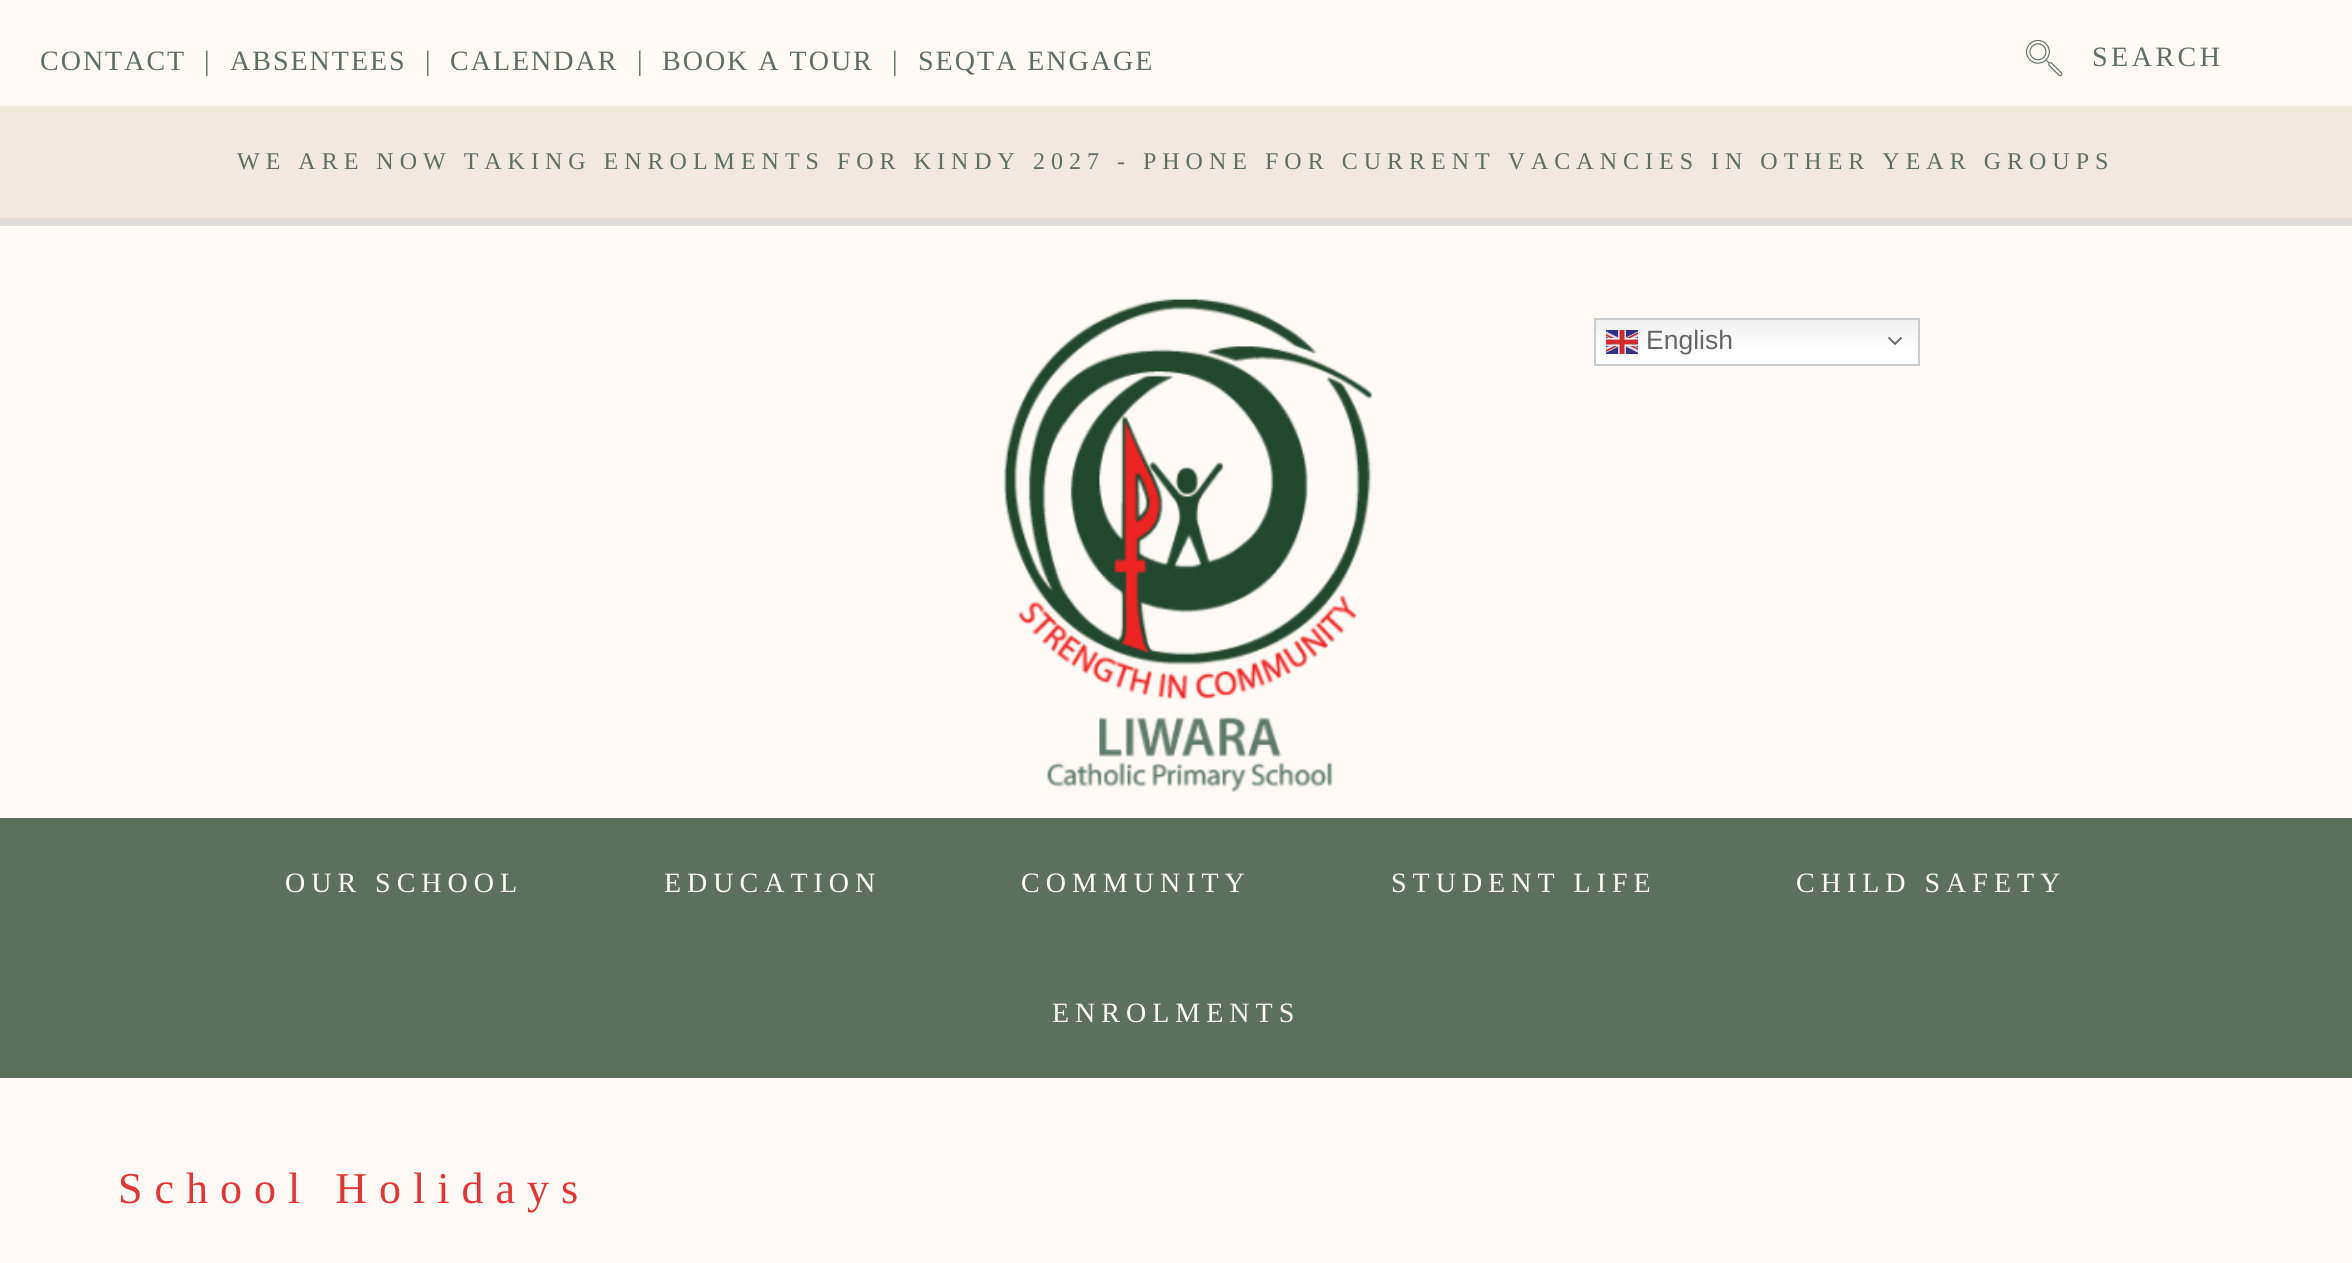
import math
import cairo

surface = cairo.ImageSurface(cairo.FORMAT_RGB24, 2352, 1263)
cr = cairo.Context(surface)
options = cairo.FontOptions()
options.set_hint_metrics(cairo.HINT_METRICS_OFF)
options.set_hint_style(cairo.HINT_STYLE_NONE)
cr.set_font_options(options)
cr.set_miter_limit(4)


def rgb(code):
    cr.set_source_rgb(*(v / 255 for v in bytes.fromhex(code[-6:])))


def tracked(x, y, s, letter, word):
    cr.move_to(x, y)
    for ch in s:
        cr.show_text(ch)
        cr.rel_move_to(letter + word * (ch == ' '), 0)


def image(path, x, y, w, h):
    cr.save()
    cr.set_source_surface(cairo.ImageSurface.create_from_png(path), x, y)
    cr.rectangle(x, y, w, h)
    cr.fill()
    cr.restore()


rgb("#fffaf5")
cr.paint()
image("img/1.png", 2026, 39, 37, 38)
rgb("#e0dcd8")
cr.rectangle(0, 218, 2352, 8)
cr.fill()
rgb("#f1e8de")
cr.rectangle(0, 106, 2352, 112)
cr.fill()
image("img/2.png", 1003, 298, 370, 495)
gradient = cairo.LinearGradient(1757, 318, 1757, 366)
gradient.add_color_stop_rgba(0, 0.937, 0.937, 0.937, 1)
gradient.add_color_stop_rgba(0.7, 1, 1, 1, 1)
cr.set_source(gradient)
cr.rectangle(1596, 320, 322, 44)
cr.fill()
cr.rectangle(1595, 319, 324, 46)
rgb("#cccccc")
cr.stroke()
image("img/3.png", 1606, 330, 32, 24)
image("img/4.png", 1888, 337, 14, 8)
rgb("#5d705d")
cr.rectangle(0, 818, 2352, 260)
cr.fill()
cr.select_font_face("Liberation Serif")
cr.set_font_size(28)
for x, y, s in [
    (40, 70, "CONTACT"),
    (204, 70, "|"),
    (230, 70, "ABSENTEES"),
    (425, 70, "|"),
    (450, 70, "CALENDAR"),
    (637, 70, "|"),
    (662, 70, "BOOK A TOUR"),
    (892, 70, "|"),
    (918, 70, "SEQTA ENGAGE"),
]:
    tracked(x, y, s, 2, 0)
tracked(2092, 66, "SEARCH", 3.5, 0)
cr.set_font_size(24)
tracked(237, 169, "WE ARE NOW TAKING ENROLMENTS FOR KINDY 2027 - PHONE FOR CURRENT VACANCIES IN OTHER YEAR GROUPS", 6, 0)
cr.select_font_face("Liberation Sans")
cr.set_font_size(26.5)
rgb("#666666")
cr.move_to(1646, 349)
cr.show_text("English")
cr.select_font_face("Liberation Serif")
cr.set_font_size(28)
rgb("#fffaf5")
for x, y, s in [
    (285, 892, "OUR SCHOOL"),
    (664, 892, "EDUCATION"),
    (1021, 892, "COMMUNITY"),
    (1391, 892, "STUDENT LIFE"),
    (1796, 892, "CHILD SAFETY"),
    (1052, 1022, "ENROLMENTS"),
]:
    tracked(x, y, s, 6, 0)
cr.set_font_size(44)
rgb("#df3636")
tracked(118, 1203, "School Holidays", 12, 0)
surface.write_to_png("page.png")
